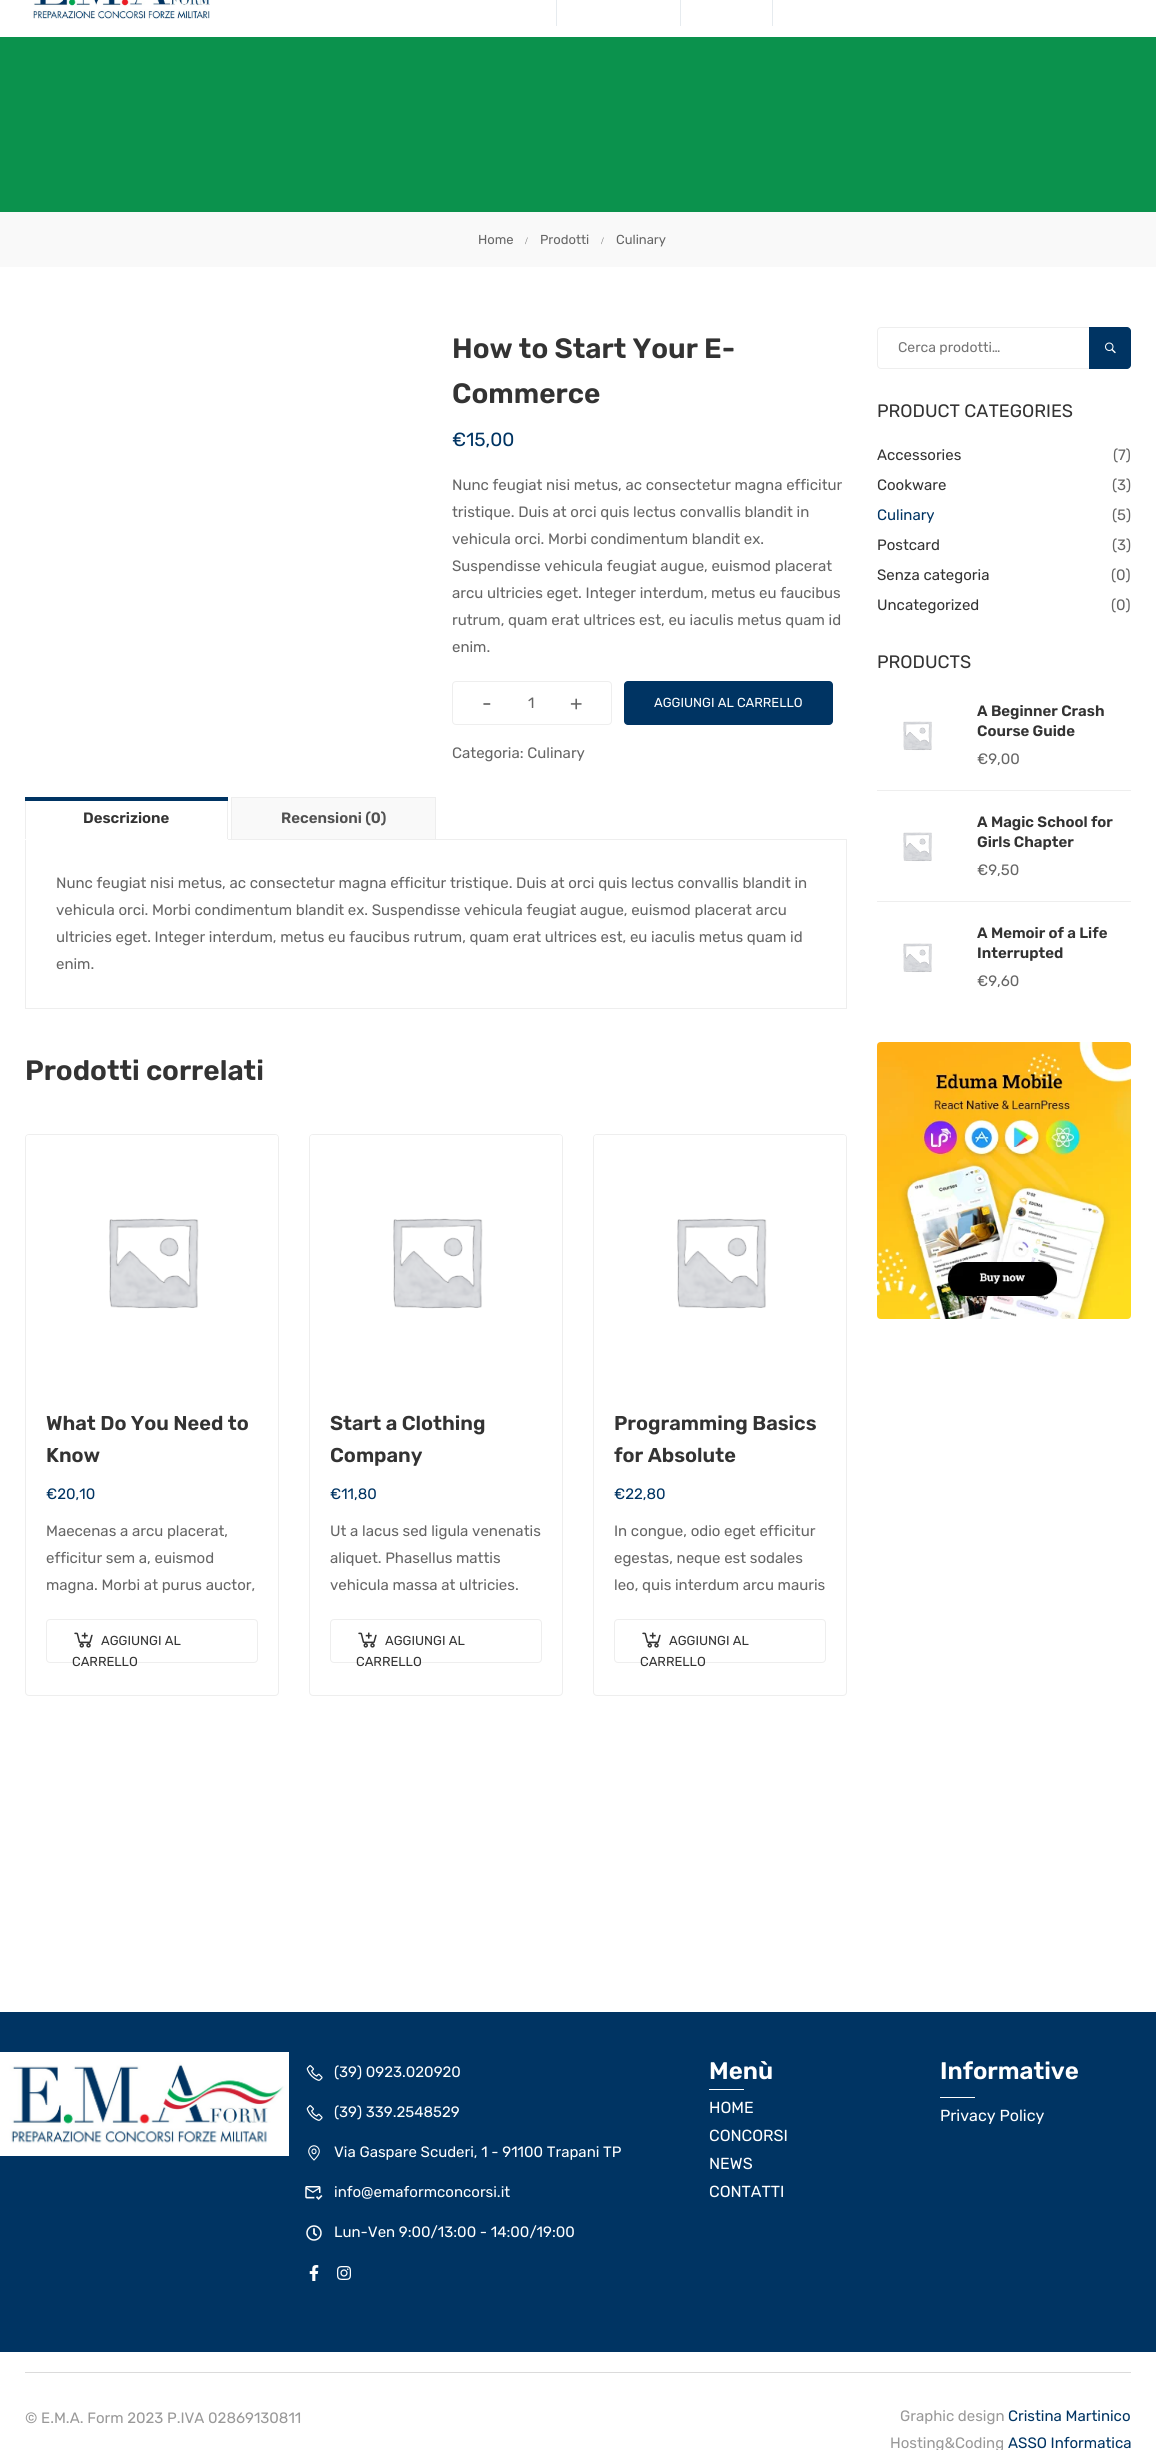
import math
import cairo

surface = cairo.ImageSurface(cairo.FORMAT_RGB24, 1156, 2450)
cr = cairo.Context(surface)
options = cairo.FontOptions()
options.set_hint_metrics(cairo.HINT_METRICS_OFF)
options.set_hint_style(cairo.HINT_STYLE_NONE)
cr.set_font_options(options)
cr.set_miter_limit(4)


def rgb(code):
    cr.set_source_rgb(*(v / 255 for v in bytes.fromhex(code[-6:])))


def rrect(x, y, w, h, r):
    cr.new_sub_path()
    for i, (u, v) in enumerate([(x + w - r, y + h - r), (x + r, y + h - r), (x + r, y + r), (x + w - r, y + r)]):
        cr.arc(u, v, r, i * math.pi / 2, (i + 1) * math.pi / 2)
    cr.close_path()


def image(path, x, y, w, h):
    cr.save()
    cr.set_source_surface(cairo.ImageSurface.create_from_png(path), x, y)
    cr.rectangle(x, y, w, h)
    cr.fill()
    cr.restore()


rgb("#ffffff")
cr.paint()
image("img/1.png", 33, 0, 177, 19)
for x, y, w, h, color in [
    (556, 0, 1, 26, "#e6ebef"),
    (680, 0, 1, 26, "#e6ebef"),
    (772, 0, 1, 26, "#e6ebef"),
    (0, 37, 1156, 175, "#0b924d"),
    (0, 212, 1156, 55, "#f9f9f9"),
]:
    rgb(color)
    cr.rectangle(x, y, w, h)
    cr.fill()
rrect(452.5, 681.5, 159, 43, 3.5)
rgb("#eeeeee")
cr.set_line_width(1)
cr.stroke()
rgb("#003463")
rrect(624, 681, 209, 44, 4)
cr.fill()
for x, y, w, h, color in [
    (228, 839, 619, 1, "#eeeeee"),
    (227, 797, 1, 42, "#eeeeee"),
    (25, 797, 1, 42, "#eeeeee"),
    (25, 797, 203, 4, "#003463"),
    (232, 798, 203, 41, "#f9f9f9"),
    (231, 797, 205, 1, "#eeeeee"),
    (435, 797, 1, 42, "#eeeeee"),
    (231, 797, 1, 42, "#eeeeee"),
    (846, 840, 1, 169, "#eeeeee"),
    (25, 1008, 822, 1, "#eeeeee"),
    (25, 840, 1, 169, "#eeeeee"),
]:
    rgb(color)
    cr.rectangle(x, y, w, h)
    cr.fill()
rrect(25.5, 1134.5, 253, 561, 3.5)
cr.stroke()
image("img/2.png", 26, 1135, 252, 252)
rrect(46.5, 1619.5, 211, 43, 3.5)
cr.stroke()
image("img/3.png", 74, 1632, 19, 16)
rrect(309.5, 1134.5, 253, 561, 3.5)
cr.stroke()
image("img/4.png", 310, 1135, 252, 252)
rrect(330.5, 1619.5, 211, 43, 3.5)
cr.stroke()
image("img/3.png", 358, 1632, 19, 16)
rrect(593.5, 1134.5, 253, 561, 3.5)
cr.stroke()
image("img/2.png", 594, 1135, 252, 252)
rrect(614.5, 1619.5, 211, 43, 3.5)
cr.stroke()
image("img/3.png", 642, 1632, 19, 16)
rrect(877.5, 327.5, 253, 41, 3.5)
cr.stroke()
rgb("#003463")
cr.new_path()
cr.move_to(1089, 327)
cr.line_to(1127, 327)
cr.curve_to(1129, 327, 1131, 329, 1131, 331)
cr.line_to(1131, 365)
cr.curve_to(1131, 367, 1129, 369, 1127, 369)
cr.line_to(1089, 369)
cr.close_path()
cr.fill()
image("img/5.png", 1105, 342, 11, 12)
rgb("#eeeeee")
cr.rectangle(877, 790, 254, 1)
cr.fill()
image("img/6.png", 877, 695, 80, 80)
cr.rectangle(877, 901, 254, 1)
cr.fill()
image("img/7.png", 877, 806, 80, 80)
image("img/8.png", 877, 917, 80, 80)
image("img/9.png", 877, 1042, 254, 277)
rgb("#003463")
cr.rectangle(0, 2012, 1156, 340)
cr.fill()
image("img/10.png", 0, 2052, 289, 104)
image("img/11.png", 306, 2065, 17, 16)
image("img/11.png", 306, 2105, 17, 16)
image("img/12.png", 308, 2145, 12, 16)
image("img/13.png", 305, 2186, 18, 14)
image("img/14.png", 306, 2225, 16, 16)
image("img/15.png", 309, 2265, 10, 16)
image("img/16.png", 337, 2266, 14, 14)
for x, y, w, h, color in [
    (709, 2089, 35, 1, "#ffffff"),
    (940, 2097, 35, 1, "#ffffff"),
    (25, 2372, 1106, 1, "#dbdbdb"),
]:
    rgb(color)
    cr.rectangle(x, y, w, h)
    cr.fill()
cr.select_font_face("Rubik")
cr.set_font_size(13)
rgb("#666666")
cr.move_to(478, 244)
cr.show_text("Home")
cr.select_font_face("Liberation Serif")
cr.set_font_size(10)
cr.move_to(525, 244)
cr.show_text("/")
cr.select_font_face("Rubik")
cr.set_font_size(13)
cr.move_to(540, 244)
cr.show_text("Prodotti")
cr.select_font_face("Liberation Serif")
cr.set_font_size(10)
cr.move_to(601, 244)
cr.show_text("/")
cr.select_font_face("Rubik")
cr.set_font_size(13)
cr.move_to(616, 244)
cr.show_text("Culinary")
cr.select_font_face("Rubik SemiBold")
cr.set_font_size(28)
rgb("#333333")
cr.move_to(452, 358)
cr.show_text("How to Start Your E-")
cr.move_to(452, 403)
cr.show_text("Commerce")
cr.select_font_face("Rubik")
cr.set_font_size(19)
rgb("#003463")
cr.move_to(452, 446)
cr.show_text("€15,00")
cr.set_font_size(15)
rgb("#666666")
for x, y, s in [
    (452, 490, "Nunc feugiat nisi metus, ac consectetur magna efficitur"),
    (452, 517, "tristique. Duis at orci quis lectus convallis blandit in"),
    (452, 544, "vehicula orci. Morbi condimentum blandit ex."),
    (452, 571, "Suspendisse vehicula feugiat augue, euismod placerat"),
    (452, 598, "arcu ultricies eget. Integer interdum, metus eu faucibus"),
    (452, 625, "rutrum, quam erat ultrices est, eu iaculis metus quam id"),
    (452, 652, "enim."),
]:
    cr.move_to(x, y)
    cr.show_text(s)
cr.set_font_size(20)
cr.move_to(482, 710)
cr.show_text("-")
cr.set_font_size(15)
cr.move_to(528, 708)
cr.show_text("1")
cr.set_font_size(20)
cr.move_to(570, 710)
cr.show_text("+")
cr.set_font_size(13)
rgb("#ffffff")
cr.move_to(654, 707)
cr.show_text("AGGIUNGI AL CARRELLO")
cr.set_font_size(15)
rgb("#666666")
cr.move_to(452, 758)
cr.show_text("Categoria: Culinary")
cr.select_font_face("Rubik SemiBold")
rgb("#333333")
cr.move_to(83, 823)
cr.show_text("Descrizione")
rgb("#515151")
cr.move_to(281, 823)
cr.show_text("Recensioni (0)")
cr.select_font_face("Rubik")
rgb("#666666")
for x, y, s in [
    (56, 888, "Nunc feugiat nisi metus, ac consectetur magna efficitur tristique. Duis at orci quis lectus convallis blandit in"),
    (56, 915, "vehicula orci. Morbi condimentum blandit ex. Suspendisse vehicula feugiat augue, euismod placerat arcu"),
    (56, 942, "ultricies eget. Integer interdum, metus eu faucibus rutrum, quam erat ultrices est, eu iaculis metus quam id"),
    (56, 969, "enim."),
]:
    cr.move_to(x, y)
    cr.show_text(s)
cr.select_font_face("Rubik SemiBold")
cr.set_font_size(28)
rgb("#333333")
cr.move_to(25, 1080)
cr.show_text("Prodotti correlati")
cr.set_font_size(20)
cr.move_to(46, 1430)
cr.show_text("What Do You Need to")
cr.move_to(46, 1462)
cr.show_text("Know")
cr.select_font_face("Rubik")
cr.set_font_size(15)
rgb("#003463")
cr.move_to(46, 1499)
cr.show_text("€20,10")
rgb("#666666")
for x, y, s in [
    (46, 1536, "Maecenas a arcu placerat,"),
    (46, 1563, "efficitur sem a, euismod"),
    (46, 1590, "magna. Morbi at purus auctor,"),
]:
    cr.move_to(x, y)
    cr.show_text(s)
cr.set_font_size(13)
rgb("#333333")
cr.move_to(101, 1645)
cr.show_text("AGGIUNGI AL")
cr.move_to(72, 1666)
cr.show_text("CARRELLO")
cr.select_font_face("Rubik SemiBold")
cr.set_font_size(20)
cr.move_to(330, 1430)
cr.show_text("Start a Clothing")
cr.move_to(330, 1462)
cr.show_text("Company")
cr.select_font_face("Rubik")
cr.set_font_size(15)
rgb("#003463")
cr.move_to(330, 1499)
cr.show_text("€11,80")
rgb("#666666")
for x, y, s in [
    (330, 1536, "Ut a lacus sed ligula venenatis"),
    (330, 1563, "aliquet. Phasellus mattis"),
    (330, 1590, "vehicula massa at ultricies."),
]:
    cr.move_to(x, y)
    cr.show_text(s)
cr.set_font_size(13)
rgb("#333333")
cr.move_to(385, 1645)
cr.show_text("AGGIUNGI AL")
cr.move_to(356, 1666)
cr.show_text("CARRELLO")
cr.select_font_face("Rubik SemiBold")
cr.set_font_size(20)
cr.move_to(614, 1430)
cr.show_text("Programming Basics")
cr.move_to(614, 1462)
cr.show_text("for Absolute")
cr.select_font_face("Rubik")
cr.set_font_size(15)
rgb("#003463")
cr.move_to(614, 1499)
cr.show_text("€22,80")
rgb("#666666")
for x, y, s in [
    (614, 1536, "In congue, odio eget efficitur"),
    (614, 1563, "egestas, neque est sodales"),
    (614, 1590, "leo, quis interdum arcu mauris"),
]:
    cr.move_to(x, y)
    cr.show_text(s)
cr.set_font_size(13)
rgb("#333333")
cr.move_to(669, 1645)
cr.show_text("AGGIUNGI AL")
cr.move_to(640, 1666)
cr.show_text("CARRELLO")
cr.set_font_size(14)
rgb("#757575")
cr.move_to(898, 352)
cr.show_text("Cerca prodotti…")
cr.set_font_size(18)
rgb("#333333")
cr.move_to(877, 417)
cr.show_text("PRODUCT CATEGORIES")
cr.set_font_size(15)
cr.move_to(877, 460)
cr.show_text("Accessories")
rgb("#666666")
cr.move_to(1113, 460)
cr.show_text("(7)")
rgb("#333333")
cr.move_to(877, 490)
cr.show_text("Cookware")
rgb("#666666")
cr.move_to(1112, 490)
cr.show_text("(3)")
rgb("#003463")
cr.move_to(877, 520)
cr.show_text("Culinary")
rgb("#666666")
cr.move_to(1112, 520)
cr.show_text("(5)")
rgb("#333333")
cr.move_to(877, 550)
cr.show_text("Postcard")
rgb("#666666")
cr.move_to(1112, 550)
cr.show_text("(3)")
rgb("#333333")
cr.move_to(877, 580)
cr.show_text("Senza categoria")
rgb("#666666")
cr.move_to(1111, 580)
cr.show_text("(0)")
rgb("#333333")
cr.move_to(877, 610)
cr.show_text("Uncategorized")
rgb("#666666")
cr.move_to(1111, 610)
cr.show_text("(0)")
cr.set_font_size(18)
rgb("#333333")
cr.move_to(877, 668)
cr.show_text("PRODUCTS")
cr.select_font_face("Rubik SemiBold")
cr.set_font_size(15)
cr.move_to(977, 716)
cr.show_text("A Beginner Crash")
cr.move_to(977, 736)
cr.show_text("Course Guide")
cr.select_font_face("Rubik")
rgb("#666666")
cr.move_to(977, 764)
cr.show_text("€9,00")
cr.select_font_face("Rubik SemiBold")
rgb("#333333")
cr.move_to(977, 827)
cr.show_text("A Magic School for")
cr.move_to(977, 847)
cr.show_text("Girls Chapter")
cr.select_font_face("Rubik")
rgb("#666666")
cr.move_to(977, 875)
cr.show_text("€9,50")
cr.select_font_face("Rubik SemiBold")
rgb("#333333")
cr.move_to(977, 938)
cr.show_text("A Memoir of a Life")
cr.move_to(977, 958)
cr.show_text("Interrupted")
cr.select_font_face("Rubik")
rgb("#666666")
cr.move_to(977, 986)
cr.show_text("€9,60")
rgb("#ffffff")
for x, y, s in [
    (334, 2077, "(39) 0923.020920"),
    (334, 2117, "(39) 339.2548529"),
    (334, 2157, "Via Gaspare Scuderi, 1 - 91100 Trapani TP"),
    (334, 2197, "info@emaformconcorsi.it"),
    (334, 2237, "Lun-Ven 9:00/13:00 - 14:00/19:00"),
]:
    cr.move_to(x, y)
    cr.show_text(s)
cr.select_font_face("Rubik SemiBold")
cr.set_font_size(24)
cr.move_to(709, 2079)
cr.show_text("Menù")
cr.select_font_face("Rubik")
cr.set_font_size(16)
for x, y, s in [
    (709, 2113, "HOME"),
    (709, 2141, "CONCORSI"),
    (709, 2169, "NEWS"),
    (709, 2197, "CONTATTI"),
]:
    cr.move_to(x, y)
    cr.show_text(s)
cr.select_font_face("Rubik SemiBold")
cr.set_font_size(24)
cr.move_to(940, 2079)
cr.show_text("Informative")
cr.select_font_face("Rubik")
cr.set_font_size(16)
cr.move_to(940, 2121)
cr.show_text("Privacy Policy")
cr.set_font_size(15)
rgb("#999999")
cr.move_to(25, 2423)
cr.show_text("© E.M.A. Form 2023 P.IVA 02869130811")
cr.move_to(900, 2421)
cr.show_text("Graphic design")
rgb("#003463")
cr.move_to(1008, 2421)
cr.show_text("Cristina Martinico")
rgb("#999999")
cr.move_to(890, 2448)
cr.show_text("Hosting&Coding")
rgb("#003463")
cr.move_to(1008, 2448)
cr.show_text("ASSO Informatica")
surface.write_to_png("page.png")
